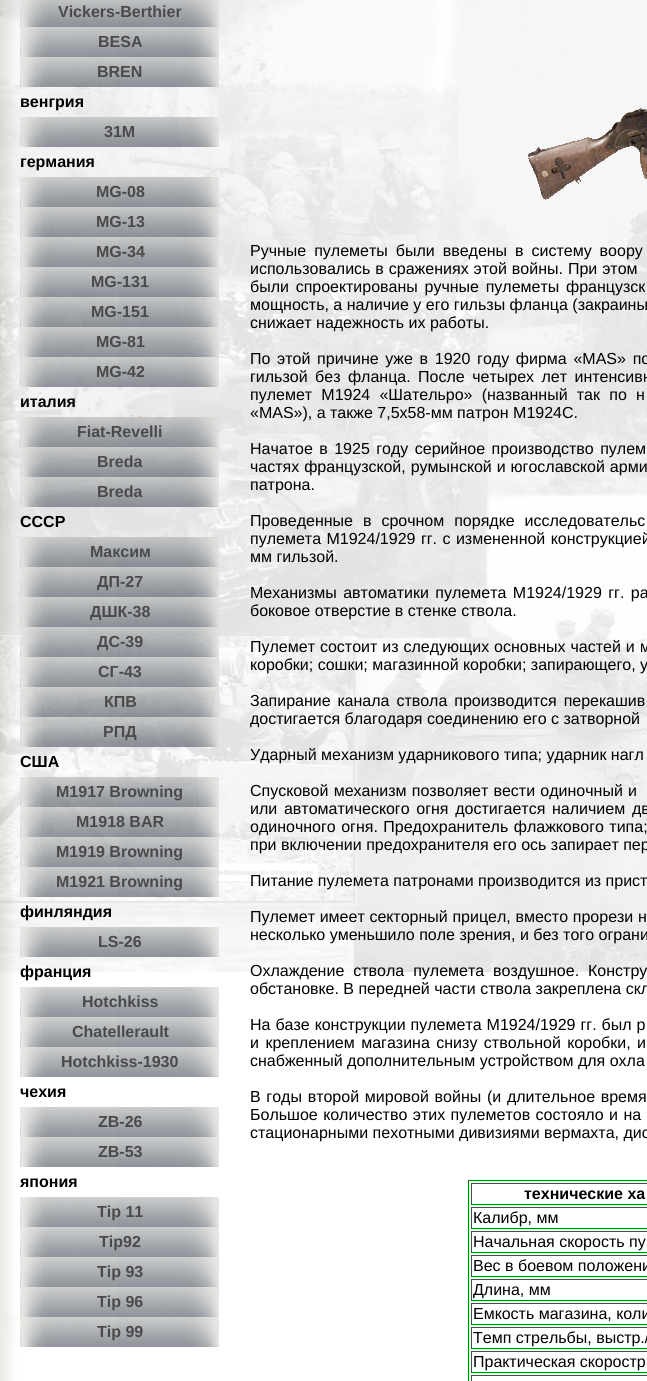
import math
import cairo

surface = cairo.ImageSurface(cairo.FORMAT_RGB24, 647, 1381)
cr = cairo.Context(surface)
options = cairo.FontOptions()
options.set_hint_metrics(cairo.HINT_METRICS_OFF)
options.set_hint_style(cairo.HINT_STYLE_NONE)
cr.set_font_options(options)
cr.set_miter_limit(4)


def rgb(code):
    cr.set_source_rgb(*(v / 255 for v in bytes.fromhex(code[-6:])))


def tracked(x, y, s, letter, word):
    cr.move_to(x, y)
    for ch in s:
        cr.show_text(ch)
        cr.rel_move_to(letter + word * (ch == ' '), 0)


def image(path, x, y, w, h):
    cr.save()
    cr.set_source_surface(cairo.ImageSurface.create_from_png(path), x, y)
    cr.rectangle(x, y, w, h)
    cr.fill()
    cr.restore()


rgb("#ffffff")
cr.paint()
image("img/1.png", 0, 0, 647, 972)
image("img/2.png", 0, 0, 647, 1381)
image("img/3.png", 20, 0, 199, 27)
image("img/4.png", 20, 27, 199, 30)
image("img/5.png", 20, 57, 199, 30)
image("img/6.png", 20, 117, 199, 30)
image("img/7.png", 20, 177, 199, 30)
image("img/8.png", 20, 207, 199, 30)
image("img/9.png", 20, 237, 199, 30)
image("img/10.png", 20, 267, 199, 30)
image("img/11.png", 20, 297, 199, 30)
image("img/12.png", 20, 327, 199, 30)
image("img/13.png", 20, 357, 199, 30)
image("img/14.png", 20, 417, 199, 30)
image("img/15.png", 20, 447, 199, 30)
image("img/16.png", 20, 477, 199, 30)
image("img/17.png", 20, 537, 199, 30)
image("img/18.png", 20, 567, 199, 30)
image("img/19.png", 20, 597, 199, 30)
image("img/20.png", 20, 627, 199, 30)
image("img/21.png", 20, 657, 199, 30)
image("img/22.png", 20, 687, 199, 30)
image("img/23.png", 20, 717, 199, 30)
image("img/24.png", 20, 777, 199, 30)
image("img/25.png", 20, 807, 199, 30)
image("img/26.png", 20, 837, 199, 30)
image("img/27.png", 20, 867, 199, 30)
image("img/28.png", 20, 927, 199, 30)
image("img/29.png", 20, 987, 199, 30)
image("img/29.png", 20, 1017, 199, 30)
image("img/29.png", 20, 1047, 199, 30)
image("img/30.png", 20, 1107, 199, 30)
image("img/29.png", 20, 1137, 199, 30)
image("img/29.png", 20, 1197, 199, 30)
image("img/29.png", 20, 1227, 199, 30)
image("img/29.png", 20, 1257, 199, 30)
image("img/31.png", 20, 1287, 199, 30)
image("img/32.png", 20, 1317, 199, 30)
image("img/33.png", 528, 107, 119, 93)
cr.rectangle(468.5, 1180.5, 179, 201)
rgb("#008000")
cr.set_line_width(1)
cr.stroke()
cr.rectangle(471.5, 1183.5, 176, 21)
cr.stroke()
cr.rectangle(471.5, 1207.5, 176, 21)
cr.stroke()
cr.rectangle(471.5, 1231.5, 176, 21)
cr.stroke()
cr.rectangle(471.5, 1255.5, 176, 21)
cr.stroke()
cr.rectangle(471.5, 1279.5, 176, 21)
cr.stroke()
cr.rectangle(471.5, 1303.5, 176, 21)
cr.stroke()
cr.rectangle(471.5, 1327.5, 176, 21)
cr.stroke()
cr.rectangle(471.5, 1351.5, 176, 21)
cr.stroke()
cr.rectangle(471.5, 1375.5, 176, 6)
cr.stroke()
cr.select_font_face("Liberation Sans", cairo.FONT_SLANT_NORMAL, cairo.FONT_WEIGHT_BOLD)
cr.set_font_size(16)
rgb("#4a4a4a")
for x, y, s in [
    (58, 17, "Vickers-Berthier"),
    (98, 47, "BESA"),
    (97, 77, "BREN"),
]:
    cr.move_to(x, y)
    cr.show_text(s)
rgb("#000000")
cr.move_to(20, 107)
cr.show_text("венгрия")
rgb("#4a4a4a")
cr.move_to(104, 137)
cr.show_text("31М")
rgb("#000000")
cr.move_to(20, 167)
cr.show_text("германия")
rgb("#4a4a4a")
for x, y, s in [
    (96, 197, "MG-08"),
    (96, 227, "MG-13"),
    (96, 257, "MG-34"),
    (91, 287, "MG-131"),
    (91, 317, "MG-151"),
    (96, 347, "MG-81"),
    (96, 377, "MG-42"),
]:
    cr.move_to(x, y)
    cr.show_text(s)
rgb("#000000")
cr.move_to(20, 407)
cr.show_text("италия")
rgb("#4a4a4a")
for x, y, s in [
    (77, 437, "Fiat-Revelli"),
    (97, 467, "Breda"),
    (97, 497, "Breda"),
]:
    cr.move_to(x, y)
    cr.show_text(s)
rgb("#000000")
cr.move_to(20, 527)
cr.show_text("СССР")
rgb("#4a4a4a")
for x, y, s in [
    (90, 557, "Максим"),
    (97, 587, "ДП-27"),
    (90, 617, "ДШК-38"),
    (97, 647, "ДС-39"),
    (98, 677, "СГ-43"),
    (104, 707, "КПВ"),
    (103, 737, "РПД"),
]:
    cr.move_to(x, y)
    cr.show_text(s)
rgb("#000000")
cr.move_to(20, 767)
cr.show_text("США")
rgb("#4a4a4a")
for x, y, s in [
    (56, 797, "М1917 Browning"),
    (76, 827, "М1918 BAR"),
    (56, 857, "M1919 Browning"),
    (56, 887, "М1921 Browning"),
]:
    cr.move_to(x, y)
    cr.show_text(s)
rgb("#000000")
cr.move_to(20, 917)
cr.show_text("финляндия")
rgb("#4a4a4a")
cr.move_to(98, 947)
cr.show_text("LS-26")
rgb("#000000")
cr.move_to(20, 977)
cr.show_text("франция")
rgb("#4a4a4a")
for x, y, s in [
    (82, 1007, "Hotchkiss"),
    (72, 1037, "Сhatellerault"),
    (61, 1067, "Hotchkiss-1930"),
]:
    cr.move_to(x, y)
    cr.show_text(s)
rgb("#000000")
cr.move_to(20, 1097)
cr.show_text("чехия")
rgb("#4a4a4a")
cr.move_to(98, 1127)
cr.show_text("ZB-26")
cr.move_to(98, 1157)
cr.show_text("ZB-53")
rgb("#000000")
cr.move_to(20, 1187)
cr.show_text("япония")
rgb("#4a4a4a")
for x, y, s in [
    (97, 1217, "Tip 11"),
    (99, 1247, "Tip92"),
    (97, 1277, "Tip 93"),
    (97, 1307, "Tip 96"),
    (97, 1337, "Tip 99"),
]:
    cr.move_to(x, y)
    cr.show_text(s)
cr.select_font_face("Liberation Sans")
rgb("#000000")
tracked(250, 256, "Ручные пулеметы были введены в систему воору", 0, 3.5)
tracked(250, 274, "использовались в сражениях этой войны. При этом", 0, 0.5)
tracked(250, 292, "были спроектированы ручные пулеметы французск", 0, 2.25)
cr.move_to(250, 310)
cr.show_text("мощность, а наличие у его гильзы фланца (закраины")
cr.move_to(250, 328)
cr.show_text("снижает надежность их работы.")
tracked(250, 364, "По этой причине уже в 1920 году фирма «MAS» по", 0, 2.25)
tracked(250, 382, "гильзой без фланца. После четырех лет интенсивн", 0, 3)
tracked(250, 400, "пулемет М1924 «Шательро» (названный так по н", 0, 4.75)
cr.move_to(250, 418)
cr.show_text("«MAS»), а также 7,5х58-мм патрон М1924С.")
tracked(250, 454, "Начатое в 1925 году серийное производство пулем", 0, 2)
tracked(250, 472, "частях французской, румынской и югославской арми", 0, 0.5)
cr.move_to(250, 490)
cr.show_text("патрона.")
tracked(250, 526, "Проведенные в срочном порядке исследовательс", 0, 5.5)
tracked(250, 544, "пулемета М1924/1929 гг. с измененной конструкцией", 0, 1)
cr.move_to(250, 562)
cr.show_text("мм гильзой.")
tracked(250, 598, "Механизмы автоматики пулемета М1924/1929 гг. ра", 0, 2)
cr.move_to(250, 616)
cr.show_text("боковое отверстие в стенке ствола.")
tracked(250, 652, "Пулемет состоит из следующих основных частей и м", 0, 0.5)
cr.move_to(250, 670)
cr.show_text("коробки; сошки; магазинной коробки; запирающего, у")
tracked(250, 706, "Запирание канала ствола производится перекашив", 0, 2.5)
cr.move_to(250, 724)
cr.show_text("достигается благодаря соединению его с затворной")
cr.move_to(250, 760)
cr.show_text("Ударный механизм ударникового типа; ударник нагл")
tracked(250, 796, "Спусковой механизм позволяет вести одиночный и", 0, 0.75)
tracked(250, 814, "или автоматического огня достигается наличием дв", 0, 2.25)
tracked(250, 832, "одиночного огня. Предохранитель флажкового типа;", 0, 1)
cr.move_to(250, 850)
cr.show_text("при включении предохранителя его ось запирает пер")
cr.move_to(250, 886)
cr.show_text("Питание пулемета патронами производится из прист")
tracked(250, 922, "Пулемет имеет секторный прицел, вместо прорези н", 0, 0.25)
cr.move_to(250, 940)
cr.show_text("несколько уменьшило поле зрения, и без того ограни")
tracked(250, 976, "Охлаждение ствола пулемета воздушное. Констру", 0, 4.5)
cr.move_to(250, 994)
cr.show_text("обстановке. В передней части ствола закреплена скл")
tracked(250, 1030, "На базе конструкции пулемета М1924/1929 гг. был р", 0, 0.5)
tracked(250, 1048, "и креплением магазина снизу ствольной коробки, и", 0, 2)
cr.move_to(250, 1066)
cr.show_text("снабженный дополнительным устройством для охла")
tracked(250, 1102, "В годы второй мировой войны (и длительное время", 0, 1.25)
tracked(250, 1120, "Большое количество этих пулеметов состояло и на", 0, 1)
cr.move_to(250, 1138)
cr.show_text("стационарными пехотными дивизиями вермахта, дис")
cr.select_font_face("Liberation Sans", cairo.FONT_SLANT_NORMAL, cairo.FONT_WEIGHT_BOLD)
cr.move_to(524, 1199)
cr.show_text("технические ха")
cr.select_font_face("Liberation Sans")
for x, y, s in [
    (473, 1223, "Калибр, мм"),
    (473, 1247, "Начальная скорость пу"),
    (473, 1271, "Вес в боевом положени"),
    (473, 1295, "Длина, мм"),
    (473, 1319, "Емкость магазина, коли"),
    (473, 1343, "Темп стрельбы, выстр./"),
    (473, 1367, "Практическая скоростр"),
]:
    cr.move_to(x, y)
    cr.show_text(s)
surface.write_to_png("page.png")
